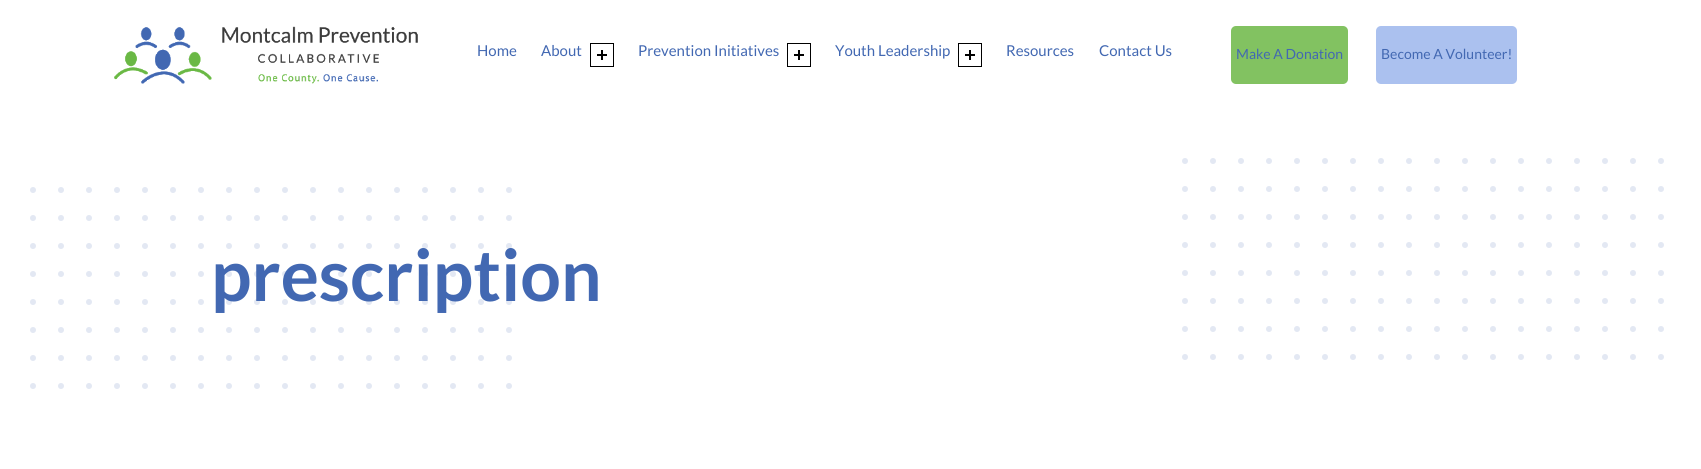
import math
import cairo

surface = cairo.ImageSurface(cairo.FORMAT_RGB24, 1701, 469)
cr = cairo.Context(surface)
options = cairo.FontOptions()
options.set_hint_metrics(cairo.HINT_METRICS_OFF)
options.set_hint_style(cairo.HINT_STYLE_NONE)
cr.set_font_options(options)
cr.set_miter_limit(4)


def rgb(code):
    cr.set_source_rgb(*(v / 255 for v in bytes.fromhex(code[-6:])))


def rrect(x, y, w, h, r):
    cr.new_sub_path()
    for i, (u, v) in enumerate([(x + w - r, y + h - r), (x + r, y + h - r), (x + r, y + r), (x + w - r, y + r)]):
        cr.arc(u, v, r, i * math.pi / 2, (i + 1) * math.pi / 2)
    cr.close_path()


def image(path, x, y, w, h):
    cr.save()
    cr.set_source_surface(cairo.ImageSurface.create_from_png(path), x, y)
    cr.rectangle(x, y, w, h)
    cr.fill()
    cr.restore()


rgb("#ffffff")
cr.paint()
image("img/1.png", 114, 26, 304, 58)
cr.rectangle(590.5, 43.5, 23, 23)
rgb("#000000")
cr.set_line_width(1)
cr.stroke()
cr.rectangle(597, 54, 10, 2)
cr.fill()
cr.rectangle(601, 50, 2, 10)
cr.fill()
cr.rectangle(787.5, 43.5, 23, 23)
cr.stroke()
cr.rectangle(794, 54, 10, 2)
cr.fill()
cr.rectangle(798, 50, 2, 10)
cr.fill()
cr.rectangle(958.5, 43.5, 23, 23)
cr.stroke()
cr.rectangle(965, 54, 10, 2)
cr.fill()
cr.rectangle(969, 50, 2, 10)
cr.fill()
rgb("#82c261")
rrect(1231, 26, 117, 58, 5)
cr.fill()
rgb("#abc1ef")
rrect(1376, 26, 141, 58, 5)
cr.fill()
cr.new_path()
cr.move_to(33, 190)
cr.line_to(509.2, 190)
rgb("#e3e8f3")
cr.set_line_width(6)
cr.set_line_cap(cairo.LINE_CAP_ROUND)
cr.set_dash([0, 28])
cr.stroke()
cr.new_path()
cr.move_to(33, 218)
cr.line_to(509.2, 218)
cr.stroke()
cr.new_path()
cr.move_to(33, 246)
cr.line_to(509.2, 246)
cr.stroke()
cr.new_path()
cr.move_to(33, 274)
cr.line_to(509.2, 274)
cr.stroke()
cr.new_path()
cr.move_to(33, 302)
cr.line_to(509.2, 302)
cr.stroke()
cr.new_path()
cr.move_to(33, 330)
cr.line_to(509.2, 330)
cr.stroke()
cr.new_path()
cr.move_to(33, 358)
cr.line_to(509.2, 358)
cr.stroke()
cr.new_path()
cr.move_to(33, 386)
cr.line_to(509.2, 386)
cr.stroke()
cr.new_path()
cr.move_to(1185, 161)
cr.line_to(1661.2, 161)
cr.stroke()
cr.new_path()
cr.move_to(1185, 189)
cr.line_to(1661.2, 189)
cr.stroke()
cr.new_path()
cr.move_to(1185, 217)
cr.line_to(1661.2, 217)
cr.stroke()
cr.new_path()
cr.move_to(1185, 245)
cr.line_to(1661.2, 245)
cr.stroke()
cr.new_path()
cr.move_to(1185, 273)
cr.line_to(1661.2, 273)
cr.stroke()
cr.new_path()
cr.move_to(1185, 301)
cr.line_to(1661.2, 301)
cr.stroke()
cr.new_path()
cr.move_to(1185, 329)
cr.line_to(1661.2, 329)
cr.stroke()
cr.new_path()
cr.move_to(1185, 357)
cr.line_to(1661.2, 357)
cr.stroke()
cr.select_font_face("Lato")
cr.set_font_size(15)
rgb("#4268b2")
for x, y, s in [
    (477, 56, "Home"),
    (541, 56, "About"),
    (638, 56, "Prevention Initiatives"),
    (835, 56, "Youth Leadership"),
    (1006, 56, "Resources"),
    (1099, 56, "Contact Us"),
]:
    cr.move_to(x, y)
    cr.show_text(s)
cr.set_font_size(14)
cr.move_to(1236, 59)
cr.show_text("Make A Donation")
cr.move_to(1381, 59)
cr.show_text("Become A Volunteer!")
cr.select_font_face("Lato", cairo.FONT_SLANT_NORMAL, cairo.FONT_WEIGHT_BOLD)
cr.set_font_size(71.5)
cr.move_to(211, 301)
cr.show_text("prescription")
surface.write_to_png("page.png")
